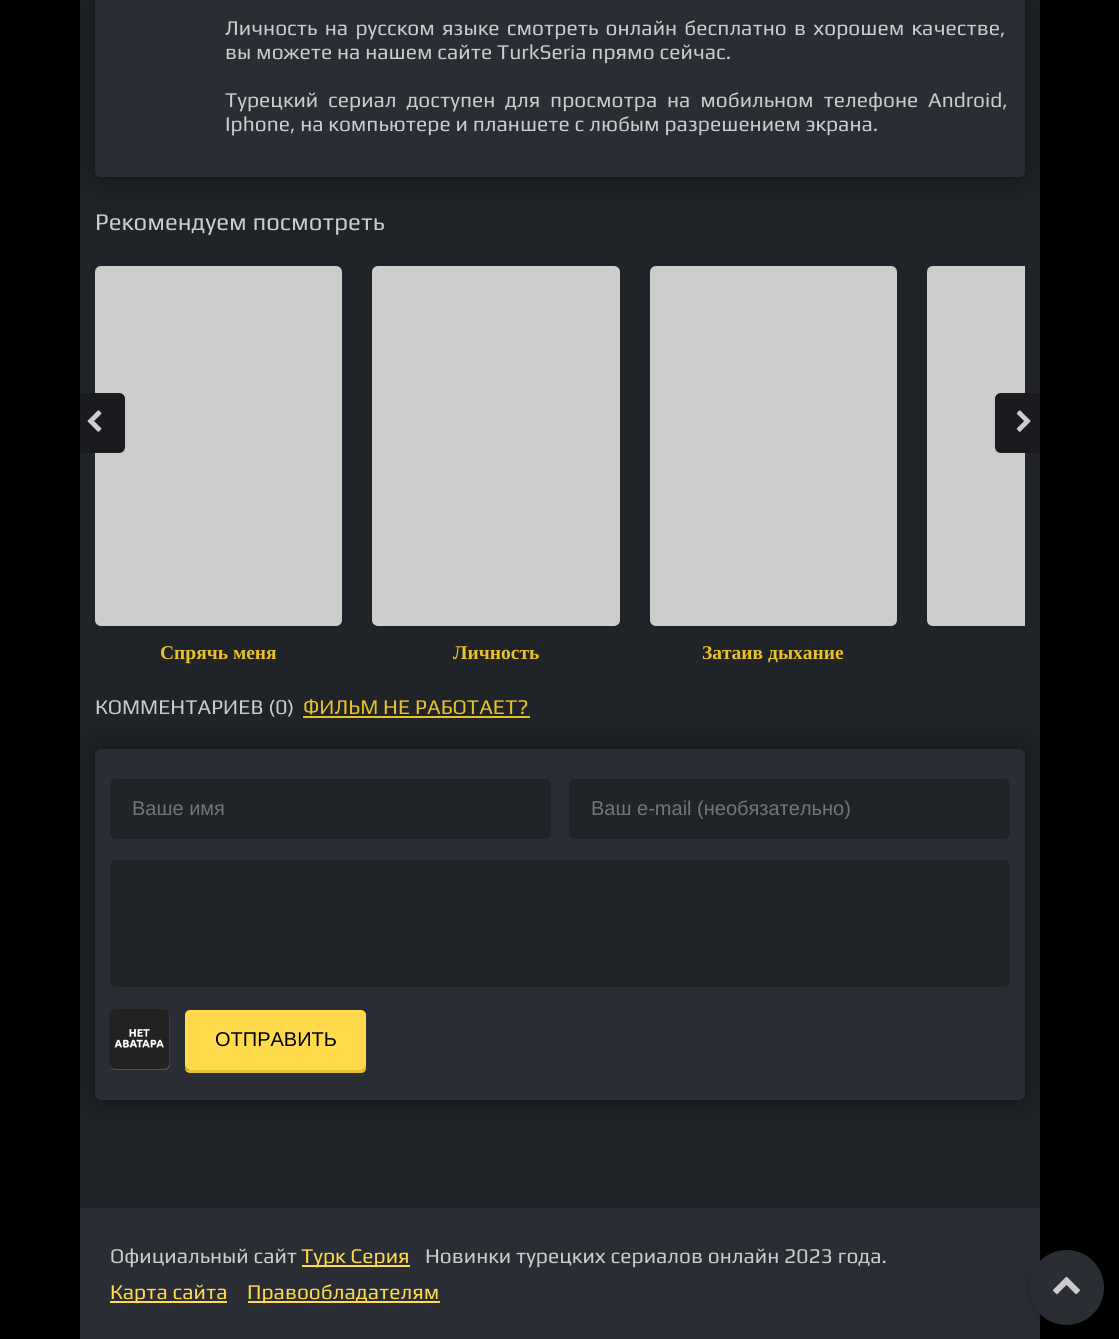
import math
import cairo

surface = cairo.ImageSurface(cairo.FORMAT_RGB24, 1119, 1339)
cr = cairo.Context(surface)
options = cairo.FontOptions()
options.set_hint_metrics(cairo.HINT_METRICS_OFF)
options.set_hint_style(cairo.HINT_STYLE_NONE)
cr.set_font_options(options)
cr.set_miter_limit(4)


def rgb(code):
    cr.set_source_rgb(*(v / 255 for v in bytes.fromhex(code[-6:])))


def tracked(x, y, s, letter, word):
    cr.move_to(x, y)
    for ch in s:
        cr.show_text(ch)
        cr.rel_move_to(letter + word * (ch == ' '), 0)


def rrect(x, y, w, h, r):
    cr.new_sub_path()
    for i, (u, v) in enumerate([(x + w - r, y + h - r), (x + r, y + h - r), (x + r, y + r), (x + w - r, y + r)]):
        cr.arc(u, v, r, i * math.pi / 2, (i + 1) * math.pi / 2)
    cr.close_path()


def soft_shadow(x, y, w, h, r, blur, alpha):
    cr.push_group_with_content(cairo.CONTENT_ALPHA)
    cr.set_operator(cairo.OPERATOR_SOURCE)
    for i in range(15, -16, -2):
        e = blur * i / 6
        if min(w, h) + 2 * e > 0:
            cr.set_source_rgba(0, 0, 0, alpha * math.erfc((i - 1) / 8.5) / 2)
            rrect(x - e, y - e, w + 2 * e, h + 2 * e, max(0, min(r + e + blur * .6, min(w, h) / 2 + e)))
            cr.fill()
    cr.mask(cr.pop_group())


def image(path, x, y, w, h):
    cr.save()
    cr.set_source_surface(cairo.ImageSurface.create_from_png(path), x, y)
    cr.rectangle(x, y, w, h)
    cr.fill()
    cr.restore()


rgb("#000000")
cr.paint()
rgb("#202328")
cr.rectangle(80, 0, 960, 1208)
cr.fill()
cr.save()
cr.rectangle(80, 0, 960, 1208)
cr.clip()
rgb("#000000")
soft_shadow(95, -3, 930, 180, 6, 15, 0.5)
cr.restore()
rgb("#2a2d34")
rrect(95, -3, 930, 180, 6)
cr.fill()
rgb("#cccccc")
rrect(95, 266, 247, 360, 6)
cr.fill()
rgb("#1b1b1f")
cr.new_path()
cr.move_to(80, 393)
cr.line_to(119, 393)
cr.curve_to(122.5, 393, 125, 395.5, 125, 399)
cr.line_to(125, 447)
cr.curve_to(125, 450.5, 122.5, 453, 119, 453)
cr.line_to(80, 453)
cr.close_path()
cr.fill()
image("img/1.png", 87, 410, 15, 22)
rgb("#cccccc")
cr.new_path()
cr.move_to(933, 266)
cr.line_to(1025, 266)
cr.line_to(1025, 626)
cr.line_to(933, 626)
cr.curve_to(929.5, 626, 927, 623.5, 927, 620)
cr.line_to(927, 272)
cr.curve_to(927, 268.5, 929.5, 266, 933, 266)
cr.close_path()
cr.fill()
rgb("#1b1b1f")
cr.new_path()
cr.move_to(1001, 393)
cr.line_to(1040, 393)
cr.line_to(1040, 453)
cr.line_to(1001, 453)
cr.curve_to(997.5, 453, 995, 450.5, 995, 447)
cr.line_to(995, 399)
cr.curve_to(995, 395.5, 997.5, 393, 1001, 393)
cr.close_path()
cr.fill()
image("img/2.png", 1016, 410, 15, 22)
rgb("#cccccc")
rrect(372, 266, 248, 360, 6)
cr.fill()
rrect(650, 266, 247, 360, 6)
cr.fill()
rgb("#e8c229")
cr.rectangle(303, 716, 227, 2)
cr.fill()
cr.save()
cr.rectangle(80, 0, 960, 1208)
cr.clip()
rgb("#000000")
soft_shadow(95, 749, 930, 351, 6, 15, 0.5)
cr.restore()
rgb("#2a2d34")
rrect(95, 749, 930, 351, 6)
cr.fill()
rgb("#202328")
rrect(110, 779, 441, 60, 6)
cr.fill()
rrect(569, 779, 441, 60, 6)
cr.fill()
rrect(110, 860, 900, 127, 6)
cr.fill()
rgb("#4f555f")
rrect(110, 1010, 60, 60, 6)
cr.fill()
image("img/3.png", 109, 1009, 61, 60)
rgb("#e8c229")
cr.new_path()
cr.move_to(185, 1067)
cr.line_to(185, 1068)
cr.curve_to(185, 1071, 187, 1073, 190, 1073)
cr.line_to(361, 1073)
cr.curve_to(364, 1073, 366, 1071, 366, 1068)
cr.line_to(366, 1065)
cr.curve_to(366, 1067, 364, 1070, 362, 1070)
cr.line_to(189, 1070)
cr.curve_to(187, 1070, 186, 1069, 185, 1067)
cr.close_path()
cr.fill()
rgb("#ffdb4c")
rrect(185, 1010, 181, 60, 5)
cr.fill()
for x, y, w, h, color in [
    (80, 1208, 960, 131, "#2a2d34"),
    (302, 1265, 108, 2, "#ffdb4c"),
    (110, 1301, 117, 2, "#ffdb4c"),
    (248, 1301, 192, 2, "#ffdb4c"),
]:
    rgb(color)
    cr.rectangle(x, y, w, h)
    cr.fill()
rgb("#000000")
soft_shadow(1029, 1251, 75, 75, 37.5, 3, 0.2)
rgb("#2a2d34")
cr.arc(1066.5, 1287.5, 37.5, 0, 2 * math.pi)
cr.fill()
image("img/4.png", 1053, 1276, 27, 19)
cr.select_font_face("Play")
cr.set_font_size(21)
rgb("#cccccc")
tracked(225, 35, "Личность на русском языке смотреть онлайн бесплатно в хорошем качестве,", 0, 2.5)
cr.move_to(225, 59)
cr.show_text("вы можете на нашем сайте TurkSeria прямо сейчас.")
tracked(225, 107, "Турецкий сериал доступен для просмотра на мобильном телефоне Android,", 0, 5)
cr.move_to(225, 131)
cr.show_text("Iphone, на компьютере и планшете с любым разрешением экрана.")
cr.set_font_size(24)
cr.move_to(95, 230)
cr.show_text("Рекомендуем посмотреть")
cr.select_font_face("Liberation Serif", cairo.FONT_SLANT_NORMAL, cairo.FONT_WEIGHT_BOLD)
cr.set_font_size(19.5)
rgb("#e8c229")
for x, y, s in [
    (160, 659, "Спрячь меня"),
    (453, 659, "Личность"),
    (702, 659, "Затаив дыхание"),
]:
    cr.move_to(x, y)
    cr.show_text(s)
cr.select_font_face("Play")
cr.set_font_size(21)
rgb("#cccccc")
cr.move_to(95, 714)
cr.show_text("КОММЕНТАРИЕВ (0)")
rgb("#e8c229")
cr.move_to(303, 714)
cr.show_text("ФИЛЬМ НЕ РАБОТАЕТ?")
cr.select_font_face("Liberation Sans")
cr.set_font_size(20)
rgb("#757575")
cr.move_to(132, 815)
cr.show_text("Ваше имя")
cr.save()
cr.rectangle(591, 797, 396, 22)
cr.clip()
cr.move_to(591, 815)
cr.show_text("Ваш e-mail (необязательно)")
cr.restore()
rgb("#000000")
cr.move_to(215, 1046)
cr.show_text("ОТПРАВИТЬ")
cr.select_font_face("Play")
cr.set_font_size(21)
rgb("#cccccc")
cr.move_to(110, 1263)
cr.show_text("Официальный сайт")
rgb("#ffdb4c")
cr.move_to(301, 1263)
cr.show_text("Турк Серия")
rgb("#cccccc")
cr.move_to(425, 1263)
cr.show_text("Новинки турецких сериалов онлайн 2023 года.")
rgb("#ffdb4c")
cr.move_to(110, 1299)
cr.show_text("Карта сайта")
cr.move_to(247, 1299)
cr.show_text("Правообладателям")
surface.write_to_png("page.png")
